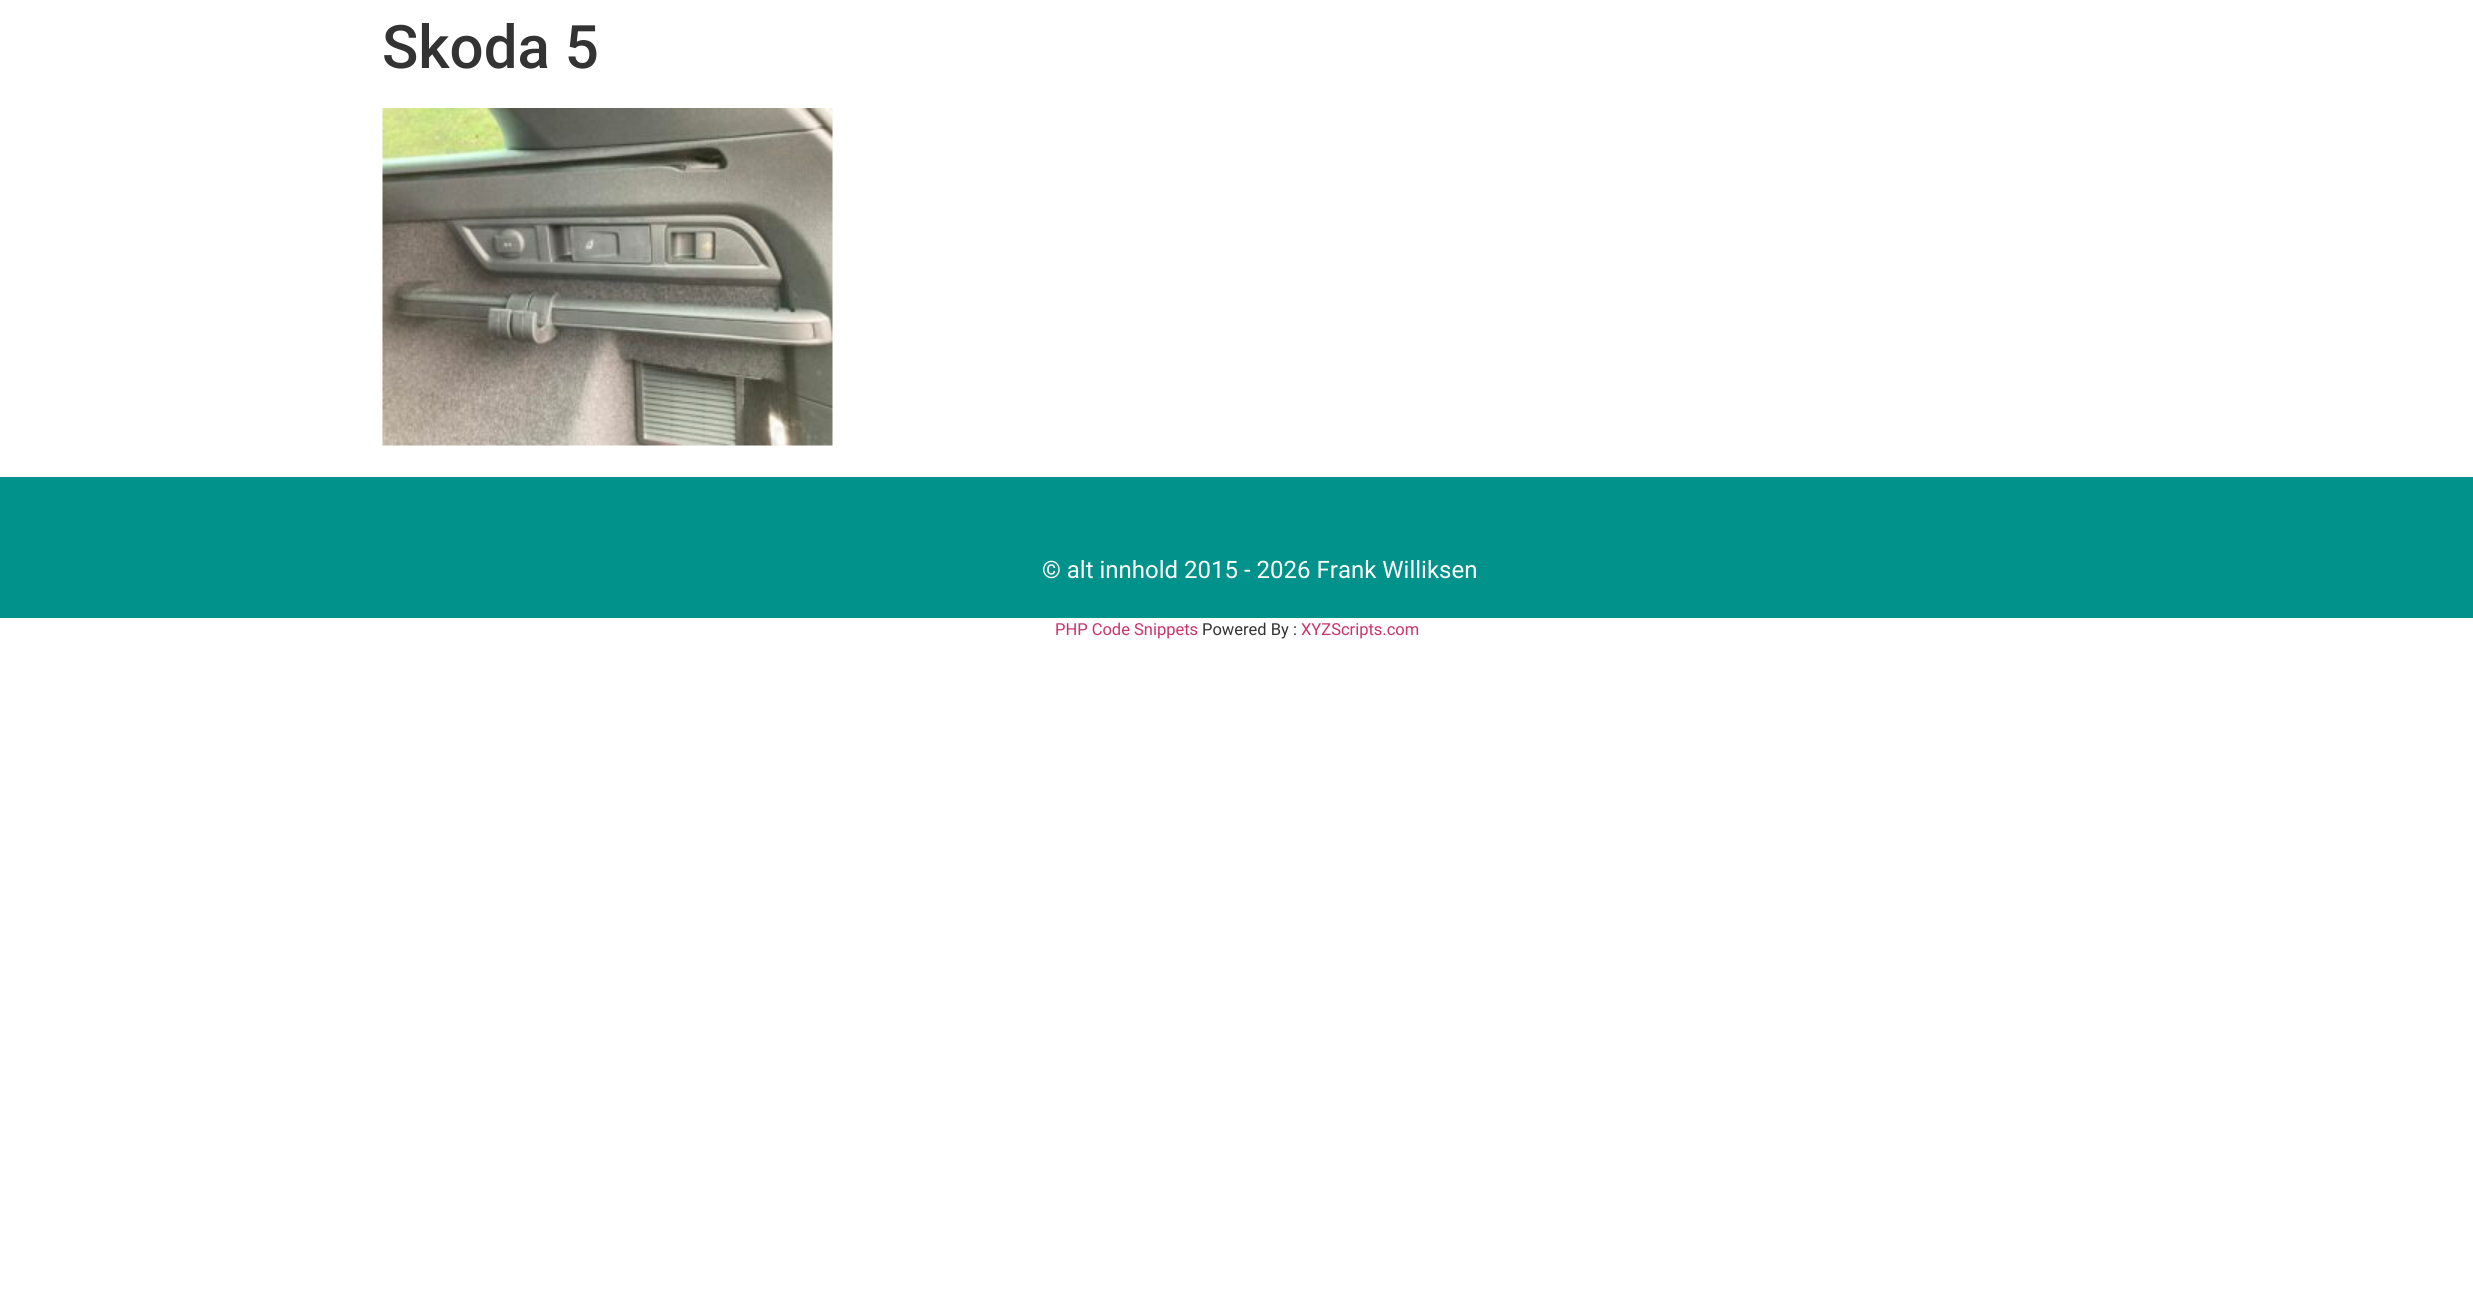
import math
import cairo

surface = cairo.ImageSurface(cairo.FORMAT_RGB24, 2473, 1300)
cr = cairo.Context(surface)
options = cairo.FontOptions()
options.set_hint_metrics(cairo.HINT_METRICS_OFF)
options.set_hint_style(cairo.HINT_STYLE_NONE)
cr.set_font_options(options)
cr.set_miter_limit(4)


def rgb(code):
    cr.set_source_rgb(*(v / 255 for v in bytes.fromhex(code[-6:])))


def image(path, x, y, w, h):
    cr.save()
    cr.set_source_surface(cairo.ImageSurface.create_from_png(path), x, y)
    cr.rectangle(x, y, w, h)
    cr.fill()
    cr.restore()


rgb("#ffffff")
cr.paint()
image("img/1.png", 382, 108, 451, 338)
rgb("#00928b")
cr.rectangle(0, 477, 2473, 141)
cr.fill()
cr.select_font_face("Roboto Medium")
cr.set_font_size(60)
rgb("#333333")
cr.move_to(382, 68)
cr.show_text("Skoda 5")
cr.select_font_face("Roboto")
cr.set_font_size(24)
rgb("#ffffff")
cr.move_to(1042, 578)
cr.show_text("© alt innhold 2015 - 2026 Frank Williksen")
cr.set_font_size(16.5)
rgb("#cc3366")
cr.move_to(1055, 635)
cr.show_text("PHP Code Snippets")
rgb("#333333")
cr.move_to(1202, 635)
cr.show_text("Powered By :")
rgb("#cc3366")
cr.move_to(1301, 635)
cr.show_text("XYZScripts.com")
surface.write_to_png("page.png")
